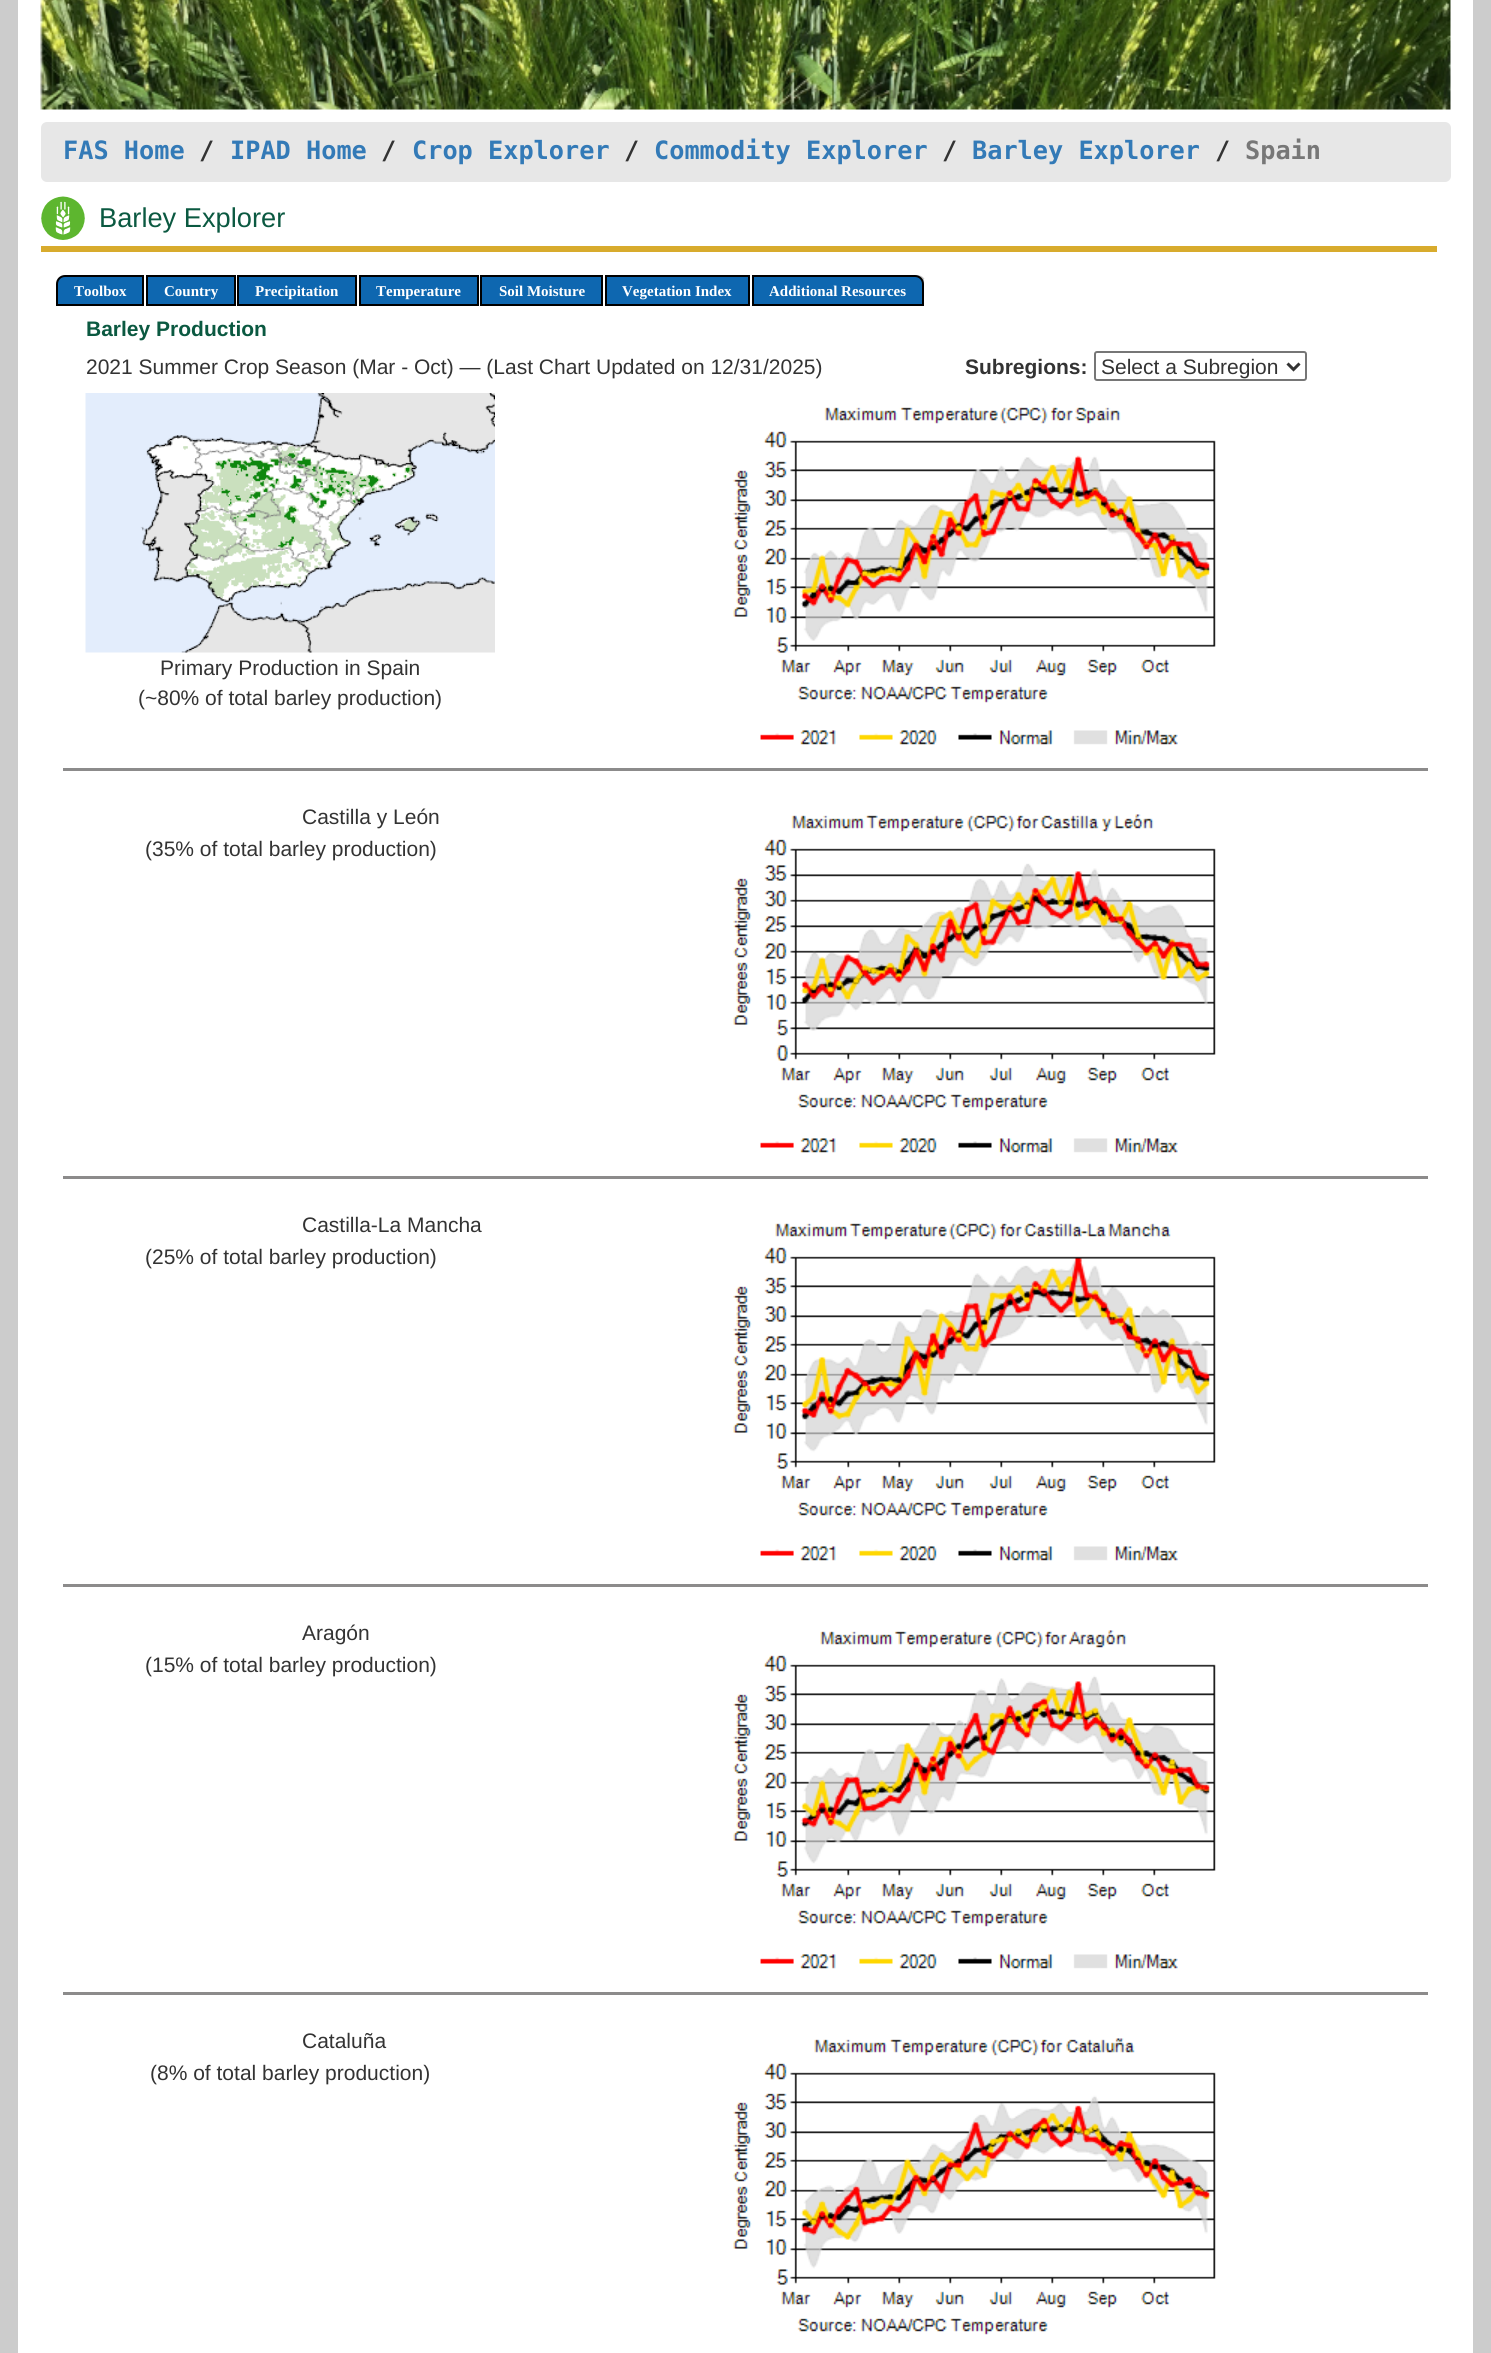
import math
import cairo

surface = cairo.ImageSurface(cairo.FORMAT_RGB24, 1491, 2353)
cr = cairo.Context(surface)
options = cairo.FontOptions()
options.set_hint_metrics(cairo.HINT_METRICS_OFF)
options.set_hint_style(cairo.HINT_STYLE_NONE)
cr.set_font_options(options)
cr.set_miter_limit(4)


def rgb(code):
    cr.set_source_rgb(*(v / 255 for v in bytes.fromhex(code[-6:])))


def rrect(x, y, w, h, r):
    cr.new_sub_path()
    for i, (u, v) in enumerate([(x + w - r, y + h - r), (x + r, y + h - r), (x + r, y + r), (x + w - r, y + r)]):
        cr.arc(u, v, r, i * math.pi / 2, (i + 1) * math.pi / 2)
    cr.close_path()


def image(path, x, y, w, h):
    cr.save()
    cr.set_source_surface(cairo.ImageSurface.create_from_png(path), x, y)
    cr.rectangle(x, y, w, h)
    cr.fill()
    cr.restore()


rgb("#cccccc")
cr.paint()
rgb("#ffffff")
cr.rectangle(18, 0, 1455, 2353)
cr.fill()
image("img/1.png", 40, 0, 1411, 110)
rgb("#e7e7e7")
rrect(41, 122, 1410, 60, 6)
cr.fill()
rgb("#d8ab2d")
cr.rectangle(41, 246, 1396, 6)
cr.fill()
image("img/2.png", 41, 196, 44, 44)
rgb("#0e67b0")
cr.new_path()
cr.move_to(65, 276)
cr.line_to(143, 276)
cr.line_to(143, 305)
cr.line_to(57, 305)
cr.line_to(57, 284)
cr.curve_to(57, 279.5, 60.5, 276, 65, 276)
cr.close_path()
cr.fill_preserve()
rgb("#000000")
cr.stroke()
rgb("#0e67b0")
cr.rectangle(147, 276, 88, 29)
cr.fill_preserve()
rgb("#000000")
cr.stroke()
rgb("#0e67b0")
cr.rectangle(238, 276, 118, 29)
cr.fill_preserve()
rgb("#000000")
cr.stroke()
rgb("#0e67b0")
cr.rectangle(360, 276, 118, 29)
cr.fill_preserve()
rgb("#000000")
cr.stroke()
rgb("#0e67b0")
cr.rectangle(481, 276, 121, 29)
cr.fill_preserve()
rgb("#000000")
cr.stroke()
rgb("#0e67b0")
cr.rectangle(606, 276, 143, 29)
cr.fill_preserve()
rgb("#000000")
cr.stroke()
rgb("#c8c8c8")
cr.new_path()
cr.move_to(752, 275)
cr.line_to(917, 275)
cr.curve_to(922, 275, 926, 279, 926, 284)
cr.line_to(926, 306)
cr.line_to(752, 306)
cr.close_path()
cr.fill()
rgb("#ffffff")
cr.rectangle(924, 279, 2, 27)
cr.fill()
rgb("#0e67b0")
cr.new_path()
cr.move_to(753, 276)
cr.line_to(915, 276)
cr.curve_to(919.5, 276, 923, 279.5, 923, 284)
cr.line_to(923, 305)
cr.line_to(753, 305)
cr.close_path()
cr.fill_preserve()
rgb("#000000")
cr.stroke()
rrect(1095, 352, 211, 28, 2)
rgb("#767676")
cr.stroke()
cr.new_path()
cr.move_to(1287.5, 363.5)
cr.line_to(1293.5, 369.5)
cr.line_to(1299.5, 363.5)
rgb("#333333")
cr.set_line_width(3)
cr.stroke()
image("img/3.png", 85, 393, 410, 260)
image("img/4.png", 733, 407, 483, 338)
rgb("#8c8b8b")
cr.rectangle(63, 768, 1365, 3)
cr.fill()
image("img/5.png", 733, 814, 483, 339)
cr.rectangle(63, 1176, 1365, 3)
cr.fill()
image("img/6.png", 733, 1223, 483, 338)
cr.rectangle(63, 1584, 1365, 3)
cr.fill()
image("img/7.png", 733, 1630, 483, 339)
cr.rectangle(63, 1992, 1365, 3)
cr.fill()
image("img/8.png", 733, 2038, 483, 297)
cr.select_font_face("DejaVu Sans Mono", cairo.FONT_SLANT_NORMAL, cairo.FONT_WEIGHT_BOLD)
cr.set_font_size(25.25)
rgb("#337ab7")
cr.move_to(63, 159)
cr.show_text("FAS Home")
rgb("#333333")
cr.move_to(199, 159)
cr.show_text("/")
rgb("#337ab7")
cr.move_to(230, 159)
cr.show_text("IPAD Home")
rgb("#333333")
cr.move_to(381, 159)
cr.show_text("/")
rgb("#337ab7")
cr.move_to(412, 159)
cr.show_text("Crop Explorer")
rgb("#333333")
cr.move_to(624, 159)
cr.show_text("/")
rgb("#337ab7")
cr.move_to(654, 159)
cr.show_text("Commodity Explorer")
rgb("#333333")
cr.move_to(942, 159)
cr.show_text("/")
rgb("#337ab7")
cr.move_to(972, 159)
cr.show_text("Barley Explorer")
rgb("#333333")
cr.move_to(1215, 159)
cr.show_text("/")
rgb("#777777")
cr.move_to(1245, 159)
cr.show_text("Spain")
cr.select_font_face("Liberation Sans")
cr.set_font_size(27.25)
rgb("#0b5941")
cr.move_to(99, 227)
cr.show_text("Barley Explorer")
cr.select_font_face("Liberation Serif", cairo.FONT_SLANT_NORMAL, cairo.FONT_WEIGHT_BOLD)
cr.set_font_size(15)
rgb("#ffffff")
for x, y, s in [
    (74, 296, "Toolbox"),
    (164, 296, "Country"),
    (255, 296, "Precipitation"),
    (376, 296, "Temperature"),
    (499, 296, "Soil Moisture"),
    (622, 296, "Vegetation Index"),
    (769, 296, "Additional Resources"),
]:
    cr.move_to(x, y)
    cr.show_text(s)
cr.select_font_face("Liberation Sans", cairo.FONT_SLANT_NORMAL, cairo.FONT_WEIGHT_BOLD)
cr.set_font_size(21)
rgb("#0b5941")
cr.move_to(86, 336)
cr.show_text("Barley Production")
cr.select_font_face("Liberation Sans")
rgb("#333333")
cr.move_to(86, 374)
cr.show_text("2021 Summer Crop Season (Mar - Oct) — (Last Chart Updated on 12/31/2025)")
cr.select_font_face("Liberation Sans", cairo.FONT_SLANT_NORMAL, cairo.FONT_WEIGHT_BOLD)
cr.move_to(965, 374)
cr.show_text("Subregions:")
cr.select_font_face("Liberation Sans")
for x, y, s in [
    (1101, 374, "Select a Subregion"),
    (160, 675, "Primary Production in Spain"),
    (138, 705, "(~80% of total barley production)"),
    (302, 824, "Castilla y León"),
    (145, 856, "(35% of total barley production)"),
    (302, 1232, "Castilla-La Mancha"),
    (145, 1264, "(25% of total barley production)"),
    (302, 1640, "Aragón"),
    (145, 1672, "(15% of total barley production)"),
    (302, 2048, "Cataluña"),
    (150, 2080, "(8% of total barley production)"),
]:
    cr.move_to(x, y)
    cr.show_text(s)
surface.write_to_png("page.png")
